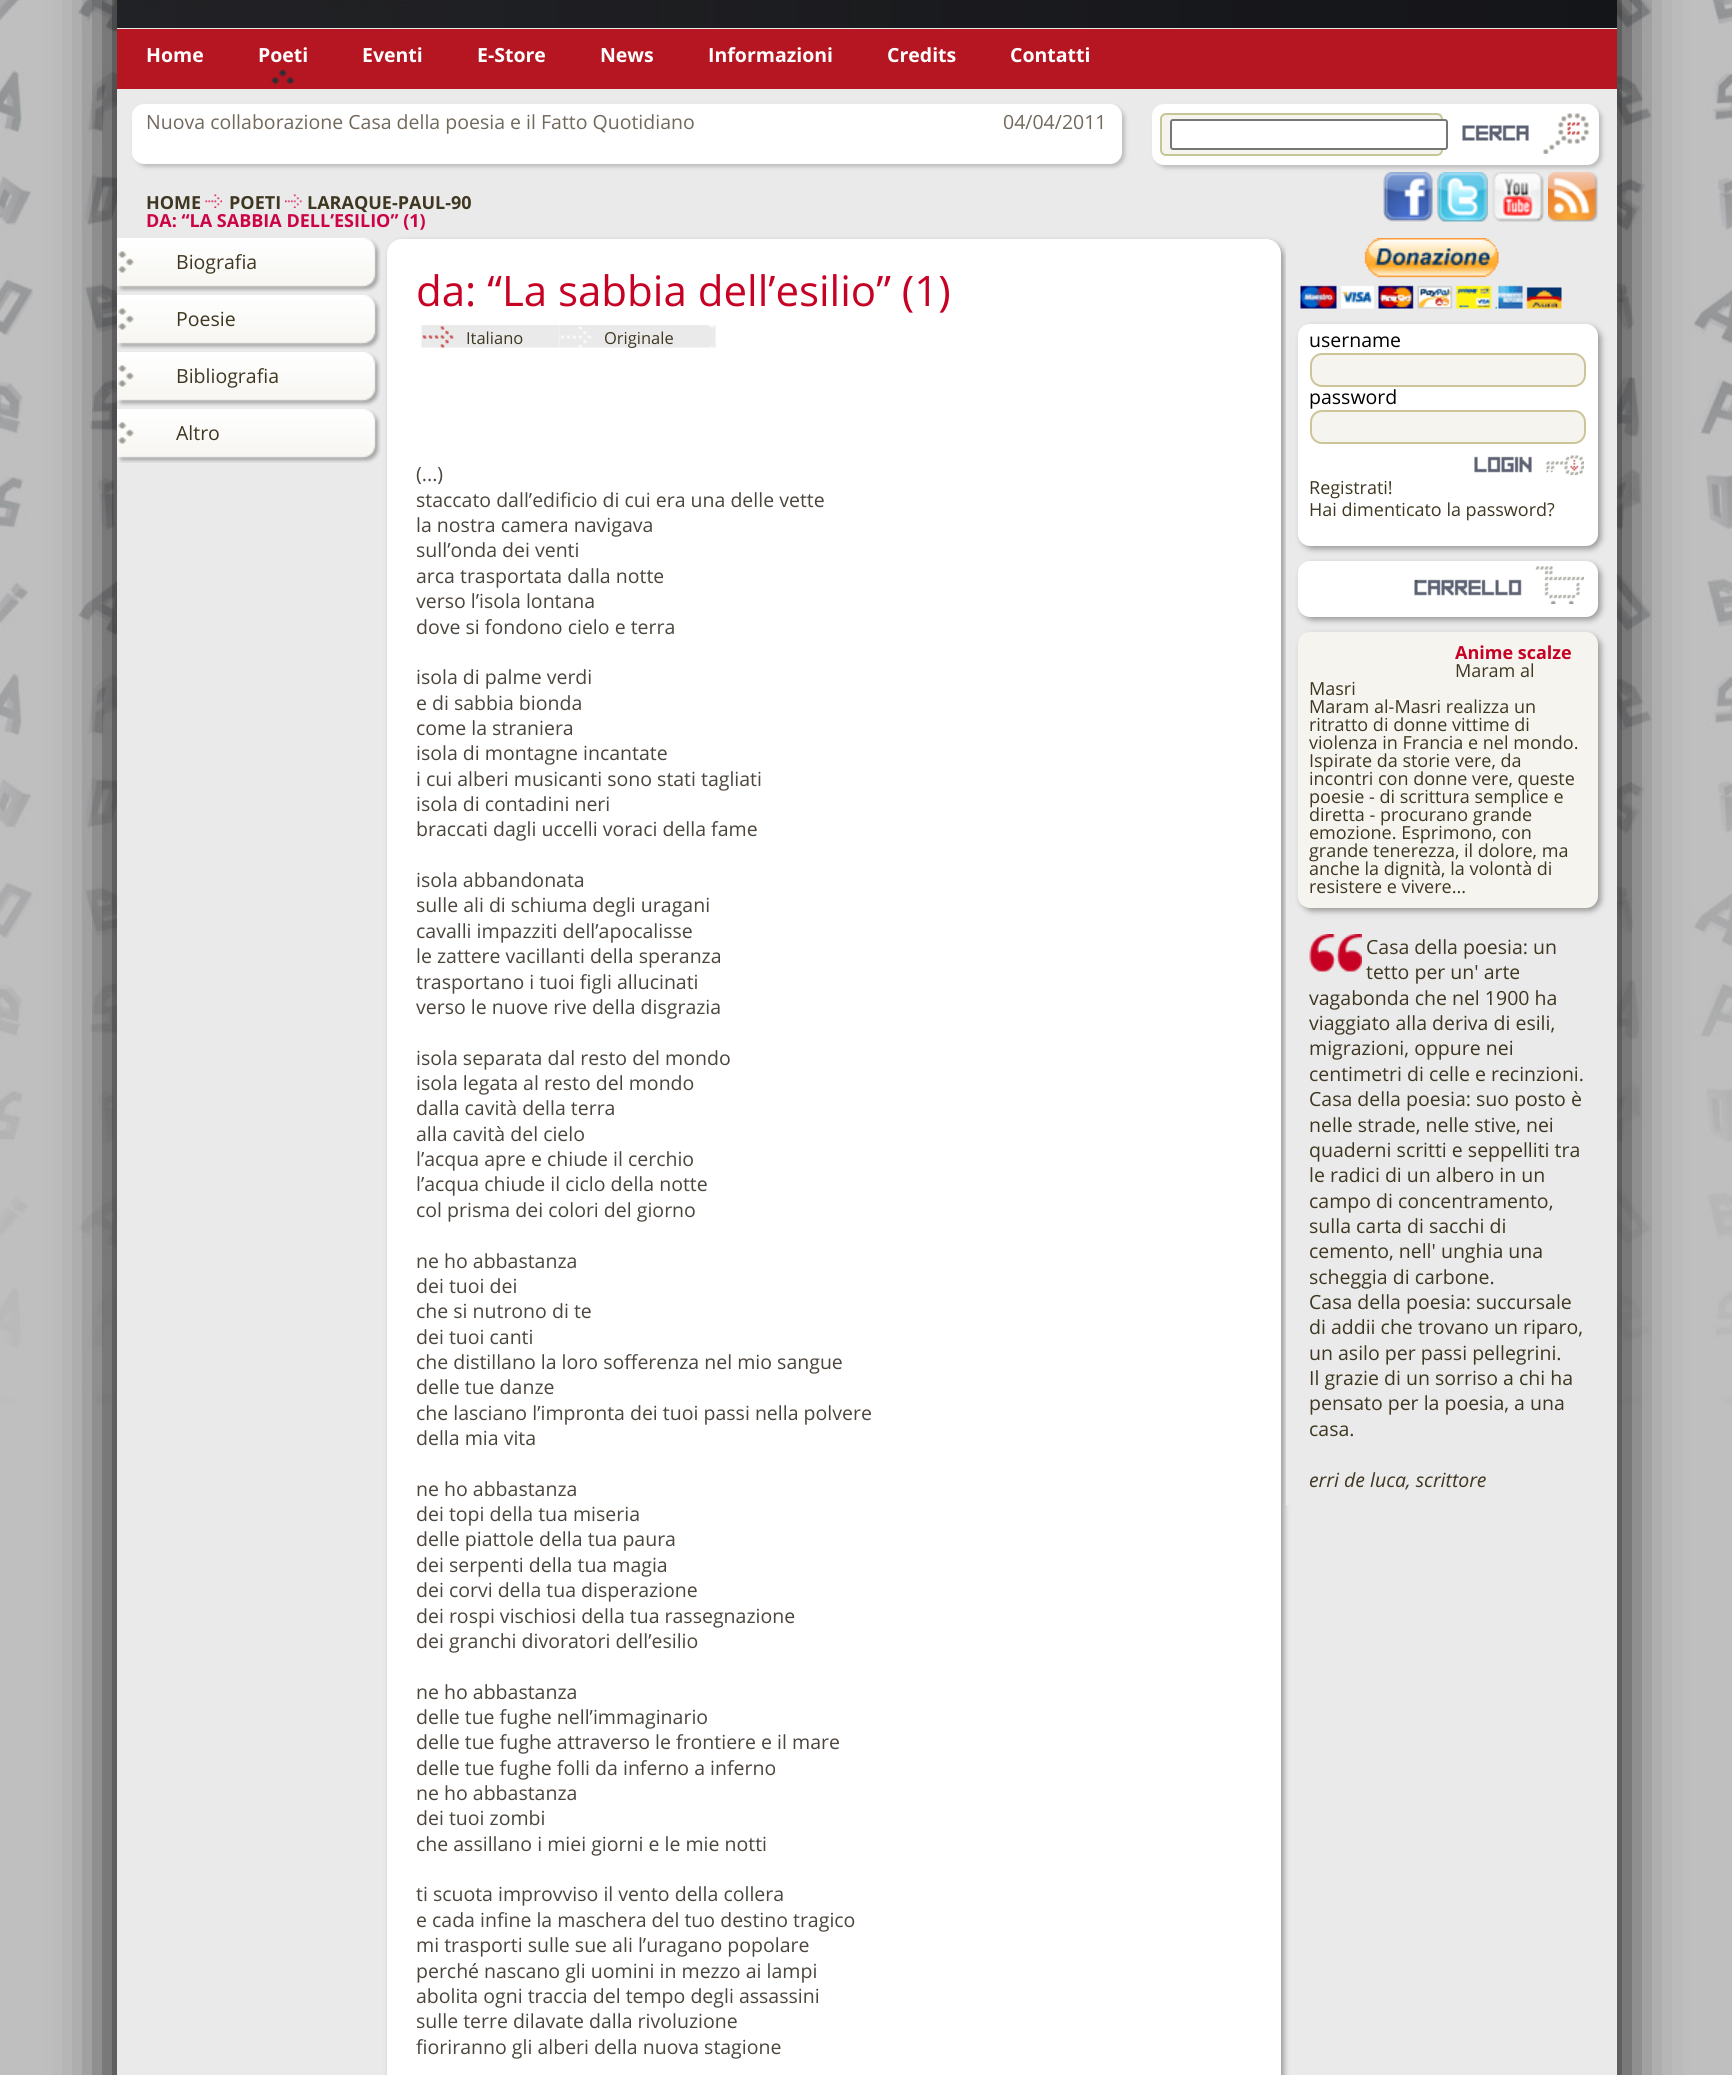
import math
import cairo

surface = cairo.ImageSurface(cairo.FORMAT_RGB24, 1732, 2075)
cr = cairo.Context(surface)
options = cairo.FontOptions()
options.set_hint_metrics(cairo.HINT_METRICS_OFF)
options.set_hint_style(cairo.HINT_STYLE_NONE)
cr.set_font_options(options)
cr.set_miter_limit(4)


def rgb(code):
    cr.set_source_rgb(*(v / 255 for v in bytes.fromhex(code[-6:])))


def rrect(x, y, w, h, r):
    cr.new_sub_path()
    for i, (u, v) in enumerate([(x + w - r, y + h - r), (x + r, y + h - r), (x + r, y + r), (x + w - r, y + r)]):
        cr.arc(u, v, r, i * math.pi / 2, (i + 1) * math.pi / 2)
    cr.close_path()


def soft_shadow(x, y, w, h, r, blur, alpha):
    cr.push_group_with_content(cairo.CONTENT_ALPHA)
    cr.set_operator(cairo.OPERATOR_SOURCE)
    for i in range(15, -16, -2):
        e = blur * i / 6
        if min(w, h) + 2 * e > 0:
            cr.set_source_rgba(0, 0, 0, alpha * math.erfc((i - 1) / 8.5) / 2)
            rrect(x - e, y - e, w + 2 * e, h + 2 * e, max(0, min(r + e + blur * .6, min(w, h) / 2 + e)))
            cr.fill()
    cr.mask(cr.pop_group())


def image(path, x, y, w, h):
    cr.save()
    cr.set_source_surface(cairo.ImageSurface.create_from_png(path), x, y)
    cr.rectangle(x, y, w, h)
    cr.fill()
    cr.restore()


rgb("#bfbfbf")
cr.paint()
image("img/1.png", 0, 0, 1732, 1404)
rgb("#000000")
soft_shadow(117, -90, 1500, 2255, 0, 30, 1)
rgb("#eaeaea")
cr.rectangle(117, 28, 1500, 2047)
cr.fill()
image("img/2.png", 117, 0, 1500, 28)
rgb("#b51621")
cr.rectangle(117, 29, 1500, 60)
cr.fill()
image("img/3.png", 271, 70, 23, 14)
rgb("#bebebe")
soft_shadow(135, 107, 990, 60, 12, 2, 1)
rgb("#ffffff")
rrect(132, 104, 990, 60, 12)
cr.fill()
image("img/4.png", 205, 194, 17, 14)
image("img/5.png", 285, 194, 17, 14)
rgb("#bebebe")
soft_shadow(1155, 107, 447, 61, 12, 2, 1)
rgb("#ffffff")
rrect(1152, 104, 447, 61, 12)
cr.fill()
rgb("#f5f4ef")
rrect(1161, 114, 281, 41, 5)
cr.fill_preserve()
rgb("#c7c696")
cr.stroke()
rgb("#ffffff")
rrect(1171, 120, 276, 29, 2)
cr.fill_preserve()
rgb("#767676")
cr.stroke()
image("img/6.png", 1462, 113, 127, 41)
image("img/7.png", 1383, 172, 50, 50)
image("img/8.png", 1437, 172, 51, 50)
image("img/9.png", 1492, 172, 52, 50)
image("img/10.png", 1548, 172, 50, 50)
image("img/11.png", 117, 238, 264, 54)
image("img/11.png", 117, 295, 264, 54)
image("img/11.png", 117, 352, 264, 54)
image("img/11.png", 117, 409, 264, 54)
rgb("#999999")
soft_shadow(390, 242, 894, 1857, 15, 3, 1)
rgb("#ffffff")
rrect(387, 239, 894, 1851, 15)
cr.fill()
image("img/12.png", 421, 325, 139, 23)
image("img/13.png", 559, 325, 157, 23)
rgb("#eaeaea")
cr.rectangle(1286, 247, 4, 1258)
cr.fill()
image("img/14.png", 1300, 238, 262, 71)
rgb("#999999")
soft_shadow(1301, 327, 300, 222, 12, 3, 1)
rgb("#ffffff")
rrect(1298, 324, 300, 222, 12)
cr.fill()
rgb("#f5f4ef")
rrect(1311, 354, 274, 32, 11)
cr.fill_preserve()
rgb("#cdc499")
cr.stroke()
rgb("#f5f4ef")
rrect(1311, 411, 274, 32, 11)
cr.fill_preserve()
rgb("#cdc499")
cr.stroke()
image("img/15.png", 1474, 455, 110, 20)
rgb("#999999")
soft_shadow(1301, 564, 300, 56, 12, 3, 1)
rgb("#ffffff")
rrect(1298, 561, 300, 56, 12)
cr.fill()
image("img/16.png", 1414, 566, 170, 38)
rgb("#999999")
soft_shadow(1301, 635, 300, 276, 12, 3, 1)
rgb("#f5f4ef")
rrect(1298, 632, 300, 276, 12)
cr.fill()
image("img/17.png", 1309, 934, 53, 38)
cr.select_font_face("Open Sans", cairo.FONT_SLANT_NORMAL, cairo.FONT_WEIGHT_BOLD)
cr.set_font_size(19.5)
rgb("#ffffff")
for x, y, s in [
    (146, 62, "Home"),
    (258, 62, "Poeti"),
    (362, 62, "Eventi"),
    (477, 62, "E-Store"),
    (600, 62, "News"),
    (708, 62, "Informazioni"),
    (887, 62, "Credits"),
    (1010, 62, "Contatti"),
]:
    cr.move_to(x, y)
    cr.show_text(s)
cr.select_font_face("Open Sans")
rgb("#72695d")
cr.move_to(146, 129)
cr.show_text("Nuova collaborazione Casa della poesia e il Fatto Quotidiano")
cr.move_to(1003, 129)
cr.show_text("04/04/2011")
cr.select_font_face("Open Sans", cairo.FONT_SLANT_NORMAL, cairo.FONT_WEIGHT_BOLD)
cr.set_font_size(18)
rgb("#3f3721")
for x, y, s in [
    (146, 209, "HOME"),
    (229, 209, "POETI"),
    (307, 209, "LARAQUE-PAUL-90"),
]:
    cr.move_to(x, y)
    cr.show_text(s)
rgb("#cc0445")
cr.move_to(146, 227)
cr.show_text("DA: “LA SABBIA DELL’ESILIO” (1)")
cr.select_font_face("Open Sans")
cr.set_font_size(19.5)
rgb("#3f3721")
for x, y, s in [
    (176, 269, "Biografia"),
    (176, 326, "Poesie"),
    (176, 383, "Bibliografia"),
    (176, 440, "Altro"),
]:
    cr.move_to(x, y)
    cr.show_text(s)
cr.set_font_size(42)
rgb("#c70124")
cr.move_to(416, 306)
cr.show_text("da: “La sabbia dell’esilio” (1)")
cr.set_font_size(16.5)
rgb("#3f3721")
cr.move_to(466, 344)
cr.show_text("Italiano")
cr.move_to(604, 344)
cr.show_text("Originale")
cr.set_font_size(19.5)
rgb("#4c453d")
for x, y, s in [
    (416, 481, "(...)"),
    (416, 507, "staccato dall’edificio di cui era una delle vette"),
    (416, 532, "la nostra camera navigava"),
    (416, 557, "sull’onda dei venti"),
    (416, 583, "arca trasportata dalla notte"),
    (416, 608, "verso l’isola lontana"),
    (416, 634, "dove si fondono cielo e terra"),
    (416, 684, "isola di palme verdi"),
    (416, 710, "e di sabbia bionda"),
    (416, 735, "come la straniera"),
    (416, 760, "isola di montagne incantate"),
    (416, 786, "i cui alberi musicanti sono stati tagliati"),
    (416, 811, "isola di contadini neri"),
    (416, 836, "braccati dagli uccelli voraci della fame"),
    (416, 887, "isola abbandonata"),
    (416, 912, "sulle ali di schiuma degli uragani"),
    (416, 938, "cavalli impazziti dell’apocalisse"),
    (416, 963, "le zattere vacillanti della speranza"),
    (416, 989, "trasportano i tuoi figli allucinati"),
    (416, 1014, "verso le nuove rive della disgrazia"),
    (416, 1065, "isola separata dal resto del mondo"),
    (416, 1090, "isola legata al resto del mondo"),
    (416, 1115, "dalla cavità della terra"),
    (416, 1141, "alla cavità del cielo"),
    (416, 1166, "l’acqua apre e chiude il cerchio"),
    (416, 1191, "l’acqua chiude il ciclo della notte"),
    (416, 1217, "col prisma dei colori del giorno"),
    (416, 1268, "ne ho abbastanza"),
    (416, 1293, "dei tuoi dei"),
    (416, 1318, "che si nutrono di te"),
    (416, 1344, "dei tuoi canti"),
    (416, 1369, "che distillano la loro sofferenza nel mio sangue"),
    (416, 1394, "delle tue danze"),
    (416, 1420, "che lasciano l’impronta dei tuoi passi nella polvere"),
    (416, 1445, "della mia vita"),
    (416, 1496, "ne ho abbastanza"),
    (416, 1521, "dei topi della tua miseria"),
    (416, 1546, "delle piattole della tua paura"),
    (416, 1572, "dei serpenti della tua magia"),
    (416, 1597, "dei corvi della tua disperazione"),
    (416, 1623, "dei rospi vischiosi della tua rassegnazione"),
    (416, 1648, "dei granchi divoratori dell’esilio"),
    (416, 1699, "ne ho abbastanza"),
    (416, 1724, "delle tue fughe nell’immaginario"),
    (416, 1749, "delle tue fughe attraverso le frontiere e il mare"),
    (416, 1775, "delle tue fughe folli da inferno a inferno"),
    (416, 1800, "ne ho abbastanza"),
    (416, 1825, "dei tuoi zombi"),
    (416, 1851, "che assillano i miei giorni e le mie notti"),
    (416, 1901, "ti scuota improvviso il vento della collera"),
    (416, 1927, "e cada infine la maschera del tuo destino tragico"),
    (416, 1952, "mi trasporti sulle sue ali l’uragano popolare"),
    (416, 1978, "perché nascano gli uomini in mezzo ai lampi"),
    (416, 2003, "abolita ogni traccia del tempo degli assassini"),
    (416, 2028, "sulle terre dilavate dalla rivoluzione"),
    (416, 2054, "fioriranno gli alberi della nuova stagione"),
]:
    cr.move_to(x, y)
    cr.show_text(s)
rgb("#000000")
cr.move_to(1309, 347)
cr.show_text("username")
cr.move_to(1309, 404)
cr.show_text("password")
cr.set_font_size(18)
rgb("#3f3721")
cr.move_to(1309, 494)
cr.show_text("Registrati!")
cr.move_to(1309, 516)
cr.show_text("Hai dimenticato la password?")
cr.set_font_size(16.5)
rgb("#4c453d")
cr.move_to(1414, 582)
cr.show_text(".")
cr.select_font_face("Open Sans", cairo.FONT_SLANT_NORMAL, cairo.FONT_WEIGHT_BOLD)
cr.set_font_size(18)
rgb("#c70124")
cr.move_to(1455, 659)
cr.show_text("Anime scalze")
cr.select_font_face("Open Sans")
rgb("#3f3721")
for x, y, s in [
    (1455, 677, "Maram al"),
    (1309, 695, "Masri"),
    (1309, 713, "Maram al-Masri realizza un"),
    (1309, 731, "ritratto di donne vittime di"),
    (1309, 749, "violenza in Francia e nel mondo."),
    (1309, 767, "Ispirate da storie vere, da"),
    (1309, 785, "incontri con donne vere, queste"),
    (1309, 803, "poesie - di scrittura semplice e"),
    (1309, 821, "diretta - procurano grande"),
    (1309, 839, "emozione. Esprimono, con"),
    (1309, 857, "grande tenerezza, il dolore, ma"),
    (1309, 875, "anche la dignità, la volontà di"),
    (1309, 893, "resistere e vivere..."),
]:
    cr.move_to(x, y)
    cr.show_text(s)
cr.set_font_size(19.5)
for x, y, s in [
    (1366, 954, "Casa della poesia: un"),
    (1366, 979, "tetto per un' arte"),
    (1309, 1005, "vagabonda che nel 1900 ha"),
    (1309, 1030, "viaggiato alla deriva di esili,"),
    (1309, 1055, "migrazioni, oppure nei"),
    (1309, 1081, "centimetri di celle e recinzioni."),
    (1309, 1106, "Casa della poesia: suo posto è"),
    (1309, 1132, "nelle strade, nelle stive, nei"),
    (1309, 1157, "quaderni scritti e seppelliti tra"),
    (1309, 1182, "le radici di un albero in un"),
    (1309, 1208, "campo di concentramento,"),
    (1309, 1233, "sulla carta di sacchi di"),
    (1309, 1258, "cemento, nell' unghia una"),
    (1309, 1284, "scheggia di carbone."),
    (1309, 1309, "Casa della poesia: succursale"),
    (1309, 1334, "di addii che trovano un riparo,"),
    (1309, 1360, "un asilo per passi pellegrini."),
    (1309, 1385, "Il grazie di un sorriso a chi ha"),
    (1309, 1410, "pensato per la poesia, a una"),
    (1309, 1436, "casa."),
]:
    cr.move_to(x, y)
    cr.show_text(s)
cr.select_font_face("Open Sans", cairo.FONT_SLANT_ITALIC)
cr.move_to(1309, 1487)
cr.show_text("erri de luca, scrittore")
surface.write_to_png("page.png")
